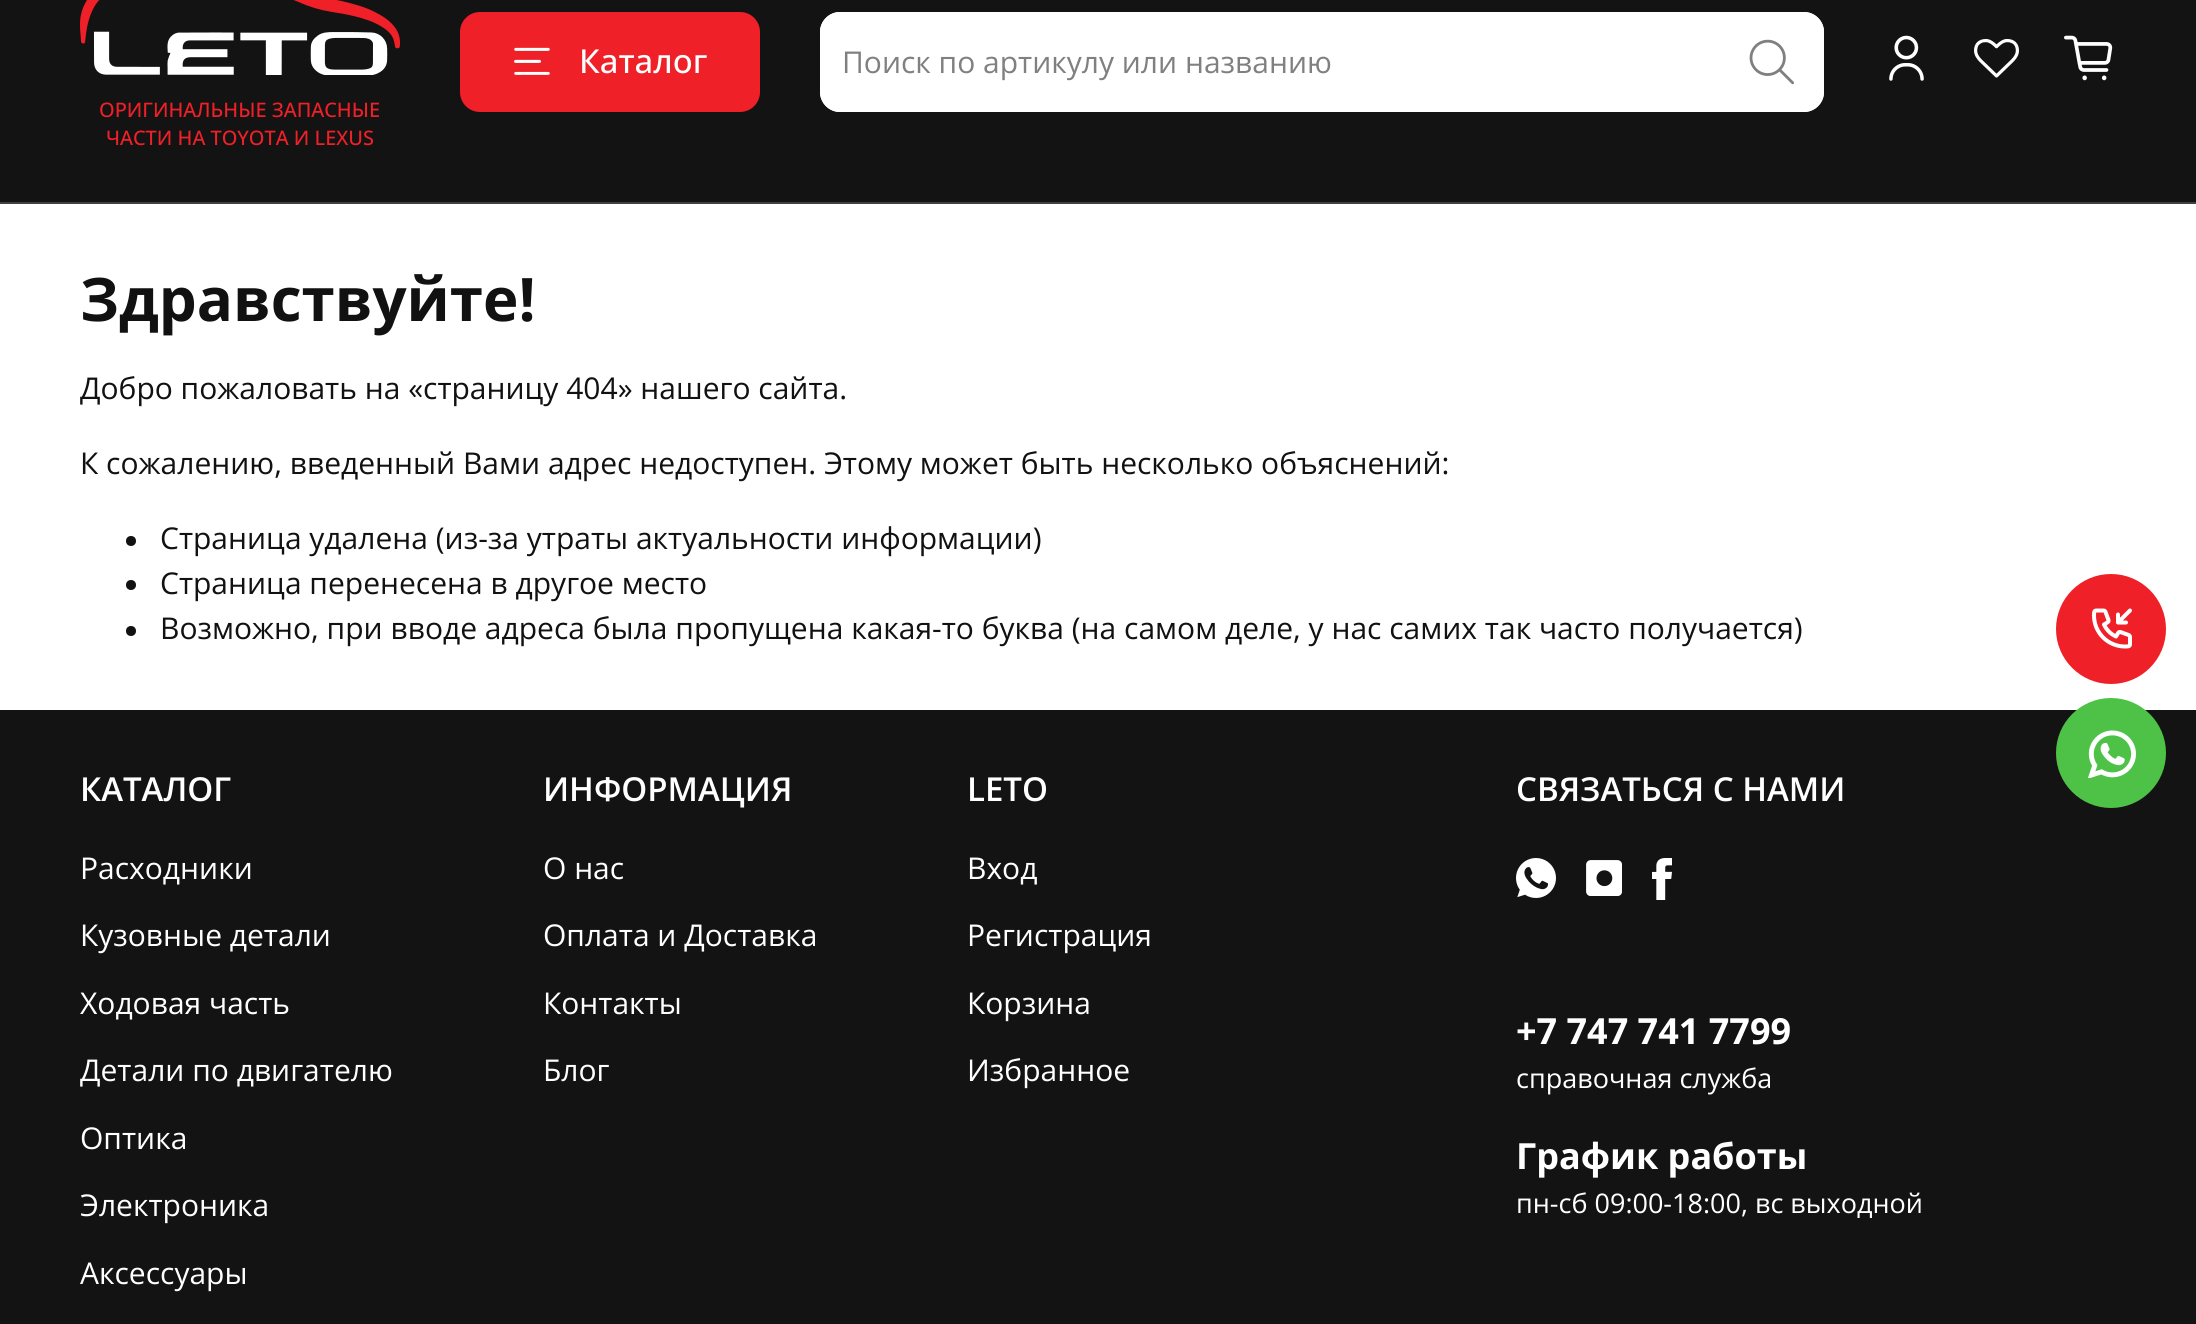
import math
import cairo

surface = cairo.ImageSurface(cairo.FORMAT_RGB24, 2196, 1324)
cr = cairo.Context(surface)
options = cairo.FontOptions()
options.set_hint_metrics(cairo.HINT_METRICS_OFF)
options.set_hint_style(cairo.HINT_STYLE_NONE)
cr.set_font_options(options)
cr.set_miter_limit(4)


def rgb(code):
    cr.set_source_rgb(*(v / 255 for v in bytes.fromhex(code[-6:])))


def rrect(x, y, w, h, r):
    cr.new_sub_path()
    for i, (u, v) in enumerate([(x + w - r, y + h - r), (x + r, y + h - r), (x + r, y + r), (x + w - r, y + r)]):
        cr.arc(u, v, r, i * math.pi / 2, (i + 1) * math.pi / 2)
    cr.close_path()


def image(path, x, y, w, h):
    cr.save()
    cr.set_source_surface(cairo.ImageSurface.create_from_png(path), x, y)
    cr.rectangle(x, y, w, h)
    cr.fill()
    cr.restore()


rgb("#ffffff")
cr.paint()
rgb("#131313")
cr.rectangle(0, 0, 2196, 202)
cr.fill()
rgb("#414141")
cr.rectangle(0, 202, 2196, 2)
cr.fill()
rgb("#f02028")
rrect(460, 12, 300, 100, 20)
cr.fill()
image("img/1.png", 514, 47, 36, 28)
rgb("#ffffff")
cr.new_path()
cr.move_to(840, 12)
cr.line_to(1724, 12)
cr.line_to(1724, 112)
cr.line_to(840, 112)
cr.curve_to(829, 112, 820, 103, 820, 92)
cr.line_to(820, 32)
cr.curve_to(820, 21, 829, 12, 840, 12)
cr.close_path()
cr.fill()
cr.set_fill_rule(cairo.FILL_RULE_EVEN_ODD)
cr.new_path()
cr.move_to(840, 12)
cr.line_to(1724, 12)
cr.line_to(1724, 112)
cr.line_to(840, 112)
cr.curve_to(829, 112, 820, 103, 820, 92)
cr.line_to(820, 32)
cr.curve_to(820, 21, 829, 12, 840, 12)
cr.close_path()
cr.move_to(840, 14)
cr.line_to(1724, 14)
cr.line_to(1724, 110)
cr.line_to(840, 110)
cr.curve_to(830, 110, 822, 102, 822, 92)
cr.line_to(822, 32)
cr.curve_to(822, 22, 830, 14, 840, 14)
cr.close_path()
cr.fill()
cr.new_path()
cr.move_to(1724, 12)
cr.line_to(1804, 12)
cr.curve_to(1815, 12, 1824, 21, 1824, 32)
cr.line_to(1824, 92)
cr.curve_to(1824, 103, 1815, 112, 1804, 112)
cr.line_to(1724, 112)
cr.close_path()
cr.fill()
cr.new_path()
cr.move_to(1724, 12)
cr.line_to(1804, 12)
cr.curve_to(1815, 12, 1824, 21, 1824, 32)
cr.line_to(1824, 92)
cr.curve_to(1824, 103, 1815, 112, 1804, 112)
cr.line_to(1724, 112)
cr.close_path()
cr.move_to(1724, 14)
cr.line_to(1804, 14)
cr.curve_to(1814, 14, 1822, 22, 1822, 32)
cr.line_to(1822, 92)
cr.curve_to(1822, 102, 1814, 110, 1804, 110)
cr.line_to(1724, 110)
cr.close_path()
cr.fill()
image("img/2.png", 1749, 39, 45, 46)
image("img/3.png", 1889, 35, 35, 46)
image("img/4.png", 1974, 38, 45, 40)
image("img/5.png", 2064, 35, 49, 46)
image("img/6.png", 80, 0, 320, 75)
rgb("#111111")
cr.arc(131, 541, 5, 0, 2 * math.pi)
cr.fill()
cr.arc(131, 585, 5, 0, 2 * math.pi)
cr.fill()
cr.arc(131, 631, 5, 0, 2 * math.pi)
cr.fill()
rgb("#131313")
cr.rectangle(0, 710, 2196, 614)
cr.fill()
rgb("#f02028")
cr.arc(2111, 629, 55, 0, 2 * math.pi)
cr.fill()
image("img/7.png", 2092, 608, 40, 41)
rgb("#4dc247")
cr.arc(2111, 753, 55, 0, 2 * math.pi)
cr.fill()
image("img/8.png", 2088, 730, 48, 48)
image("img/9.png", 1516, 858, 40, 40)
image("img/10.png", 1586, 860, 36, 36)
image("img/11.png", 1652, 858, 20, 42)
cr.select_font_face("Open Sans Medium")
cr.set_font_size(33)
rgb("#ffffff")
cr.move_to(579, 73)
cr.show_text("Каталог")
cr.select_font_face("Open Sans")
cr.set_font_size(30)
rgb("#808080")
cr.move_to(842, 73)
cr.show_text("Поиск по артикулу или названию")
cr.select_font_face("Open Sans Medium")
cr.set_font_size(20)
rgb("#f02028")
cr.move_to(99, 117)
cr.show_text("ОРИГИНАЛЬНЫЕ ЗАПАСНЫЕ")
cr.move_to(106, 145)
cr.show_text("ЧАСТИ НА TOYOTA И LEXUS")
cr.select_font_face("Open Sans", cairo.FONT_SLANT_NORMAL, cairo.FONT_WEIGHT_BOLD)
cr.set_font_size(60)
rgb("#111111")
cr.move_to(80, 321)
cr.show_text("Здравствуйте!")
cr.select_font_face("Open Sans")
cr.set_font_size(30)
for x, y, s in [
    (80, 399, "Добро пожаловать на «страницу 404» нашего сайта."),
    (80, 474, "К сожалению, введенный Вами адрес недоступен. Этому может быть несколько объяснений:"),
    (160, 549, "Страница удалена (из-за утраты актуальности информации)"),
    (160, 594, "Страница перенесена в другое место"),
    (160, 639, "Возможно, при вводе адреса была пропущена какая-то буква (на самом деле, у нас самих так часто получается)"),
]:
    cr.move_to(x, y)
    cr.show_text(s)
cr.select_font_face("Open Sans SemiBold")
cr.set_font_size(33)
rgb("#ffffff")
cr.move_to(80, 801)
cr.show_text("КАТАЛОГ")
cr.select_font_face("Open Sans")
cr.set_font_size(30)
for x, y, s in [
    (80, 879, "Расходники"),
    (80, 946, "Кузовные детали"),
    (80, 1014, "Ходовая часть"),
    (80, 1081, "Детали по двигателю"),
    (80, 1149, "Оптика"),
    (80, 1216, "Электроника"),
    (80, 1284, "Аксессуары"),
]:
    cr.move_to(x, y)
    cr.show_text(s)
cr.select_font_face("Open Sans SemiBold")
cr.set_font_size(33)
cr.move_to(543, 801)
cr.show_text("ИНФОРМАЦИЯ")
cr.select_font_face("Open Sans")
cr.set_font_size(30)
for x, y, s in [
    (543, 879, "О нас"),
    (543, 946, "Оплата и Доставка"),
    (543, 1014, "Контакты"),
    (543, 1081, "Блог"),
]:
    cr.move_to(x, y)
    cr.show_text(s)
cr.select_font_face("Open Sans SemiBold")
cr.set_font_size(33)
cr.move_to(967, 801)
cr.show_text("LETO")
cr.select_font_face("Open Sans")
cr.set_font_size(30)
for x, y, s in [
    (967, 879, "Вход"),
    (967, 946, "Регистрация"),
    (967, 1014, "Корзина"),
    (967, 1081, "Избранное"),
]:
    cr.move_to(x, y)
    cr.show_text(s)
cr.select_font_face("Open Sans SemiBold")
cr.set_font_size(33)
cr.move_to(1516, 801)
cr.show_text("СВЯЗАТЬСЯ С НАМИ")
cr.select_font_face("Open Sans", cairo.FONT_SLANT_NORMAL, cairo.FONT_WEIGHT_BOLD)
cr.set_font_size(36)
cr.move_to(1516, 1044)
cr.show_text("+7 747 741 7799")
cr.select_font_face("Open Sans")
cr.set_font_size(27)
cr.move_to(1516, 1088)
cr.show_text("справочная служба")
cr.select_font_face("Open Sans", cairo.FONT_SLANT_NORMAL, cairo.FONT_WEIGHT_BOLD)
cr.set_font_size(36)
cr.move_to(1516, 1169)
cr.show_text("График работы")
cr.select_font_face("Open Sans")
cr.set_font_size(27)
cr.move_to(1516, 1213)
cr.show_text("пн-сб 09:00-18:00, вс выходной")
surface.write_to_png("page.png")
